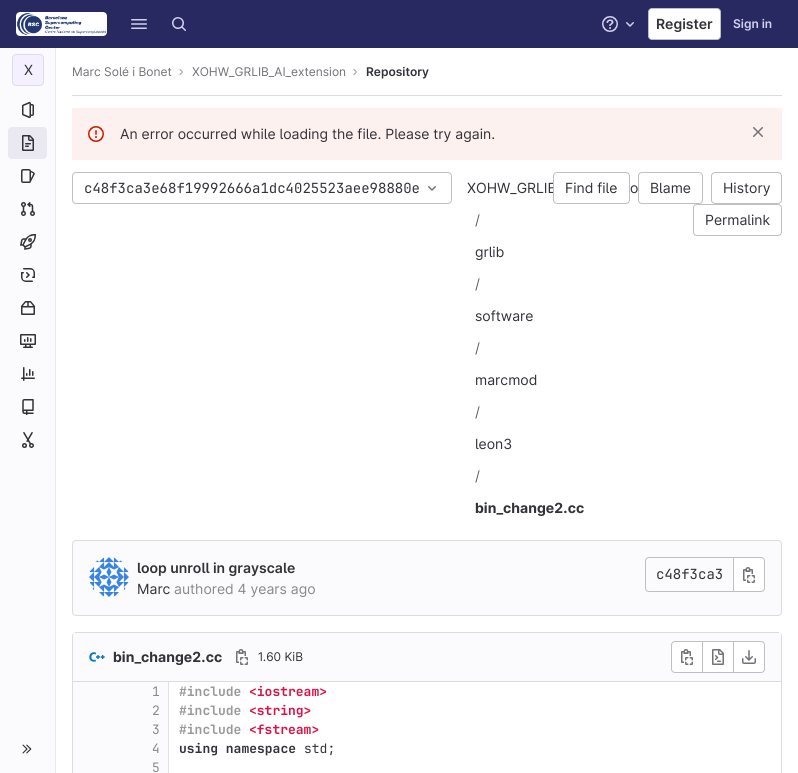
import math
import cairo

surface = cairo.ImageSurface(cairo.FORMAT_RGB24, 798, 773)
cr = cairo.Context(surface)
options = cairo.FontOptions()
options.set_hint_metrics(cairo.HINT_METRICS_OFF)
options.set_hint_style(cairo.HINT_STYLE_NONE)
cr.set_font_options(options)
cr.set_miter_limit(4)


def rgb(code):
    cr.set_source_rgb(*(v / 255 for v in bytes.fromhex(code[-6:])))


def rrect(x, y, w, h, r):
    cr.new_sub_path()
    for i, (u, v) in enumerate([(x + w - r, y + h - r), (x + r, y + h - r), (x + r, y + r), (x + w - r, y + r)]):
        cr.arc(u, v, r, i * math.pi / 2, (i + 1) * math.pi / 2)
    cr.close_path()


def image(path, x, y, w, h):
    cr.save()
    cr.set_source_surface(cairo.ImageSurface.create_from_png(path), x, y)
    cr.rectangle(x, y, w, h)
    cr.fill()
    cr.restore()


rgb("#ffffff")
cr.paint()
rgb("#292961")
cr.rectangle(0, 0, 798, 48)
cr.fill()
image("img/1.png", 16, 12, 91, 24)
image("img/2.png", 131, 19, 16, 10)
image("img/3.png", 172, 17, 14, 14)
image("img/4.png", 602, 16, 16, 16)
image("img/5.png", 626, 22, 8, 5)
rgb("#ffffff")
rrect(648.5, 8.5, 72, 31, 3.5)
cr.fill_preserve()
rgb("#bfbfc3")
cr.set_line_width(1)
cr.stroke()
rgb("#fbfafd")
cr.rectangle(0, 48, 55, 725)
cr.fill()
rgb("#e9e9e9")
cr.rectangle(55, 48, 1, 725)
cr.fill()
rgb("#f4f0ff")
rrect(12, 54, 32, 32, 4)
cr.fill()
rrect(12.5, 54.5, 31, 31, 3.5)
cr.set_source_rgba(0.122, 0.118, 0.141, 0.1)
cr.stroke()
image("img/6.png", 22, 102, 12, 16)
rgb("#eae9f1")
rrect(8, 127, 39, 32, 4)
cr.fill()
image("img/7.png", 22, 135, 12, 16)
image("img/8.png", 21, 169, 14, 14)
image("img/9.png", 21, 202, 14, 14)
image("img/10.png", 20, 234, 16, 16)
image("img/11.png", 21, 268, 14, 14)
image("img/12.png", 21, 301, 14, 14)
image("img/13.png", 20, 334, 16, 14)
image("img/14.png", 21, 367, 14, 14)
image("img/15.png", 22, 399, 12, 16)
image("img/16.png", 22, 432, 12, 16)
image("img/17.png", 22, 744, 10, 10)
rgb("#dcdcde")
cr.rectangle(72, 95, 710, 1)
cr.fill()
image("img/18.png", 179, 69, 4, 6)
image("img/18.png", 353, 69, 4, 6)
rgb("#fcf1ef")
cr.rectangle(72, 108, 710, 52)
cr.fill()
image("img/19.png", 88, 126, 16, 16)
image("img/20.png", 753, 127, 10, 10)
rrect(72.5, 172.5, 379, 31, 3.5)
rgb("#bfbfc3")
cr.stroke()
image("img/21.png", 428, 186, 8, 5)
rrect(638.5, 172.5, 64, 31, 3.5)
cr.stroke()
rrect(711.5, 172.5, 70, 31, 3.5)
cr.stroke()
rrect(693.5, 204.5, 88, 31, 3.5)
cr.stroke()
rgb("#fbfafd")
rrect(72.5, 540.5, 709, 75, 3.5)
cr.fill_preserve()
rgb("#dcdcde")
cr.stroke()
cr.arc(109, 577, 19.5, 0, 2 * math.pi)
rgb("#e7e7e8")
cr.stroke()
image("img/22.png", 89, 557, 40, 40)
cr.new_path()
cr.move_to(649, 557.5)
cr.line_to(733.5, 557.5)
cr.line_to(733.5, 591.5)
cr.line_to(649, 591.5)
cr.curve_to(647, 591.5, 645.5, 590, 645.5, 588)
cr.line_to(645.5, 561)
cr.curve_to(645.5, 559, 647, 557.5, 649, 557.5)
cr.close_path()
rgb("#bfbfc3")
cr.stroke()
rgb("#ffffff")
cr.new_path()
cr.move_to(733.5, 557.5)
cr.line_to(761, 557.5)
cr.curve_to(763, 557.5, 764.5, 559, 764.5, 561)
cr.line_to(764.5, 588)
cr.curve_to(764.5, 590, 763, 591.5, 761, 591.5)
cr.line_to(733.5, 591.5)
cr.close_path()
cr.fill_preserve()
rgb("#bfbfc3")
cr.stroke()
image("img/23.png", 743, 567, 12, 16)
rgb("#dcdcde")
cr.set_fill_rule(cairo.FILL_RULE_EVEN_ODD)
cr.new_path()
cr.move_to(76, 632)
cr.line_to(778, 632)
cr.curve_to(780, 632, 782, 634, 782, 636)
cr.line_to(782, 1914)
cr.curve_to(782, 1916, 780, 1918, 778, 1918)
cr.line_to(76, 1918)
cr.curve_to(74, 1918, 72, 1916, 72, 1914)
cr.line_to(72, 636)
cr.curve_to(72, 634, 74, 632, 76, 632)
cr.close_path()
cr.move_to(76, 632)
cr.line_to(778, 632)
cr.curve_to(780, 632, 781, 634, 781, 636)
cr.line_to(781, 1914)
cr.curve_to(781, 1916, 780, 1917, 778, 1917)
cr.line_to(76, 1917)
cr.curve_to(74, 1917, 73, 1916, 73, 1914)
cr.line_to(73, 636)
cr.curve_to(73, 634, 74, 632, 76, 632)
cr.close_path()
cr.fill()
rgb("#fbfafd")
cr.new_path()
cr.move_to(77, 632)
cr.line_to(777, 632)
cr.curve_to(779, 632, 781, 634, 781, 636)
cr.line_to(781, 682)
cr.line_to(73, 682)
cr.line_to(73, 636)
cr.curve_to(73, 634, 75, 632, 77, 632)
cr.close_path()
cr.fill()
rgb("#dcdcde")
cr.rectangle(75, 632, 704, 1)
cr.fill()
cr.rectangle(73, 681, 708, 1)
cr.fill()
image("img/24.png", 89, 652, 16, 10)
image("img/25.png", 236, 649, 12, 16)
rgb("#ffffff")
cr.new_path()
cr.move_to(675, 641.5)
cr.line_to(702.5, 641.5)
cr.line_to(702.5, 672.5)
cr.line_to(675, 672.5)
cr.curve_to(673, 672.5, 671.5, 671, 671.5, 669)
cr.line_to(671.5, 645)
cr.curve_to(671.5, 643, 673, 641.5, 675, 641.5)
cr.close_path()
cr.fill_preserve()
rgb("#bfbfc3")
cr.stroke()
image("img/26.png", 681, 649, 12, 16)
rgb("#ffffff")
cr.rectangle(702.5, 641.5, 31, 31)
cr.fill_preserve()
rgb("#bfbfc3")
cr.stroke()
image("img/27.png", 712, 649, 12, 16)
rgb("#ffffff")
cr.new_path()
cr.move_to(733.5, 641.5)
cr.line_to(761, 641.5)
cr.curve_to(763, 641.5, 764.5, 643, 764.5, 645)
cr.line_to(764.5, 669)
cr.curve_to(764.5, 671, 763, 672.5, 761, 672.5)
cr.line_to(733.5, 672.5)
cr.close_path()
cr.fill_preserve()
rgb("#bfbfc3")
cr.stroke()
image("img/28.png", 742, 650, 14, 14)
rgb("#fbfafd")
cr.rectangle(73, 682, 95, 91)
cr.fill()
rgb("#e2e1e4")
cr.rectangle(168, 682, 1, 91)
cr.fill()
cr.select_font_face("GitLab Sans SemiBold")
cr.set_font_size(14)
rgb("#333238")
cr.move_to(656, 29)
cr.show_text("Register")
cr.set_font_size(12)
rgb("#d1d1f0")
cr.move_to(733, 28)
cr.show_text("Sign in")
cr.select_font_face("GitLab Sans")
cr.set_font_size(14)
rgb("#333238")
cr.move_to(24, 75)
cr.show_text("X")
cr.set_font_size(12)
rgb("#737278")
cr.move_to(72, 76)
cr.show_text("Marc Solé i Bonet")
cr.move_to(192, 76)
cr.show_text("XOHW_GRLIB_AI_extension")
cr.select_font_face("GitLab Sans SemiBold")
rgb("#333238")
cr.move_to(366, 76)
cr.show_text("Repository")
cr.select_font_face("GitLab Sans")
cr.set_font_size(14)
cr.move_to(120, 139)
cr.show_text("An error occurred while loading the file. Please try again.")
cr.select_font_face("JetBrains Mono")
cr.move_to(84, 193)
cr.show_text("c48f3ca3e68f19992666a1dc4025523aee98880e")
cr.select_font_face("GitLab Sans")
cr.move_to(467, 193)
cr.show_text("XOHW_GRLIB")
cr.move_to(630, 193)
cr.show_text("o")
rgb("#626168")
cr.move_to(475, 225)
cr.show_text("/")
rgb("#333238")
cr.move_to(475, 257)
cr.show_text("grlib")
rgb("#626168")
cr.move_to(475, 289)
cr.show_text("/")
rgb("#333238")
cr.move_to(475, 321)
cr.show_text("software")
rgb("#626168")
cr.move_to(475, 353)
cr.show_text("/")
rgb("#333238")
cr.move_to(475, 385)
cr.show_text("marcmod")
rgb("#626168")
cr.move_to(475, 417)
cr.show_text("/")
rgb("#333238")
cr.move_to(475, 449)
cr.show_text("leon3")
rgb("#626168")
cr.move_to(475, 481)
cr.show_text("/")
cr.select_font_face("GitLab Sans", cairo.FONT_SLANT_NORMAL, cairo.FONT_WEIGHT_BOLD)
rgb("#333238")
cr.move_to(475, 513)
cr.show_text("bin_change2.cc")
rgb("#ffffff")
rrect(553.5, 172.5, 76, 31, 3.5)
cr.fill_preserve()
rgb("#bfbfc3")
cr.stroke()
cr.select_font_face("GitLab Sans")
rgb("#333238")
for x, y, s in [
    (565, 193, "Find file"),
    (650, 193, "Blame"),
    (723, 193, "History"),
    (705, 225, "Permalink"),
]:
    cr.move_to(x, y)
    cr.show_text(s)
cr.select_font_face("GitLab Sans SemiBold")
cr.move_to(137, 573)
cr.show_text("loop unroll in grayscale")
cr.select_font_face("GitLab Sans")
cr.move_to(137, 594)
cr.show_text("Marc")
rgb("#89888d")
cr.move_to(174, 594)
cr.show_text("authored 4 years ago")
cr.select_font_face("JetBrains Mono")
rgb("#333238")
cr.move_to(656, 579)
cr.show_text("c48f3ca3")
cr.select_font_face("GitLab Sans", cairo.FONT_SLANT_NORMAL, cairo.FONT_WEIGHT_BOLD)
cr.move_to(113, 662)
cr.show_text("bin_change2.cc")
cr.select_font_face("GitLab Sans")
cr.set_font_size(12)
cr.move_to(258, 661)
cr.show_text("1.60 KiB")
cr.select_font_face("JetBrains Mono")
cr.set_font_size(13)
rgb("#89888d")
cr.move_to(152, 696)
cr.show_text("1")
cr.select_font_face("JetBrains Mono", cairo.FONT_SLANT_NORMAL, cairo.FONT_WEIGHT_BOLD)
rgb("#999999")
cr.move_to(179, 696)
cr.show_text("#include")
rgb("#dd1144")
cr.move_to(249, 696)
cr.show_text("<iostream>")
cr.select_font_face("JetBrains Mono")
rgb("#89888d")
cr.move_to(152, 715)
cr.show_text("2")
cr.select_font_face("JetBrains Mono", cairo.FONT_SLANT_NORMAL, cairo.FONT_WEIGHT_BOLD)
rgb("#999999")
cr.move_to(179, 715)
cr.show_text("#include")
rgb("#dd1144")
cr.move_to(249, 715)
cr.show_text("<string>")
cr.select_font_face("JetBrains Mono")
rgb("#89888d")
cr.move_to(152, 734)
cr.show_text("3")
cr.select_font_face("JetBrains Mono", cairo.FONT_SLANT_NORMAL, cairo.FONT_WEIGHT_BOLD)
rgb("#999999")
cr.move_to(179, 734)
cr.show_text("#include")
rgb("#dd1144")
cr.move_to(249, 734)
cr.show_text("<fstream>")
cr.select_font_face("JetBrains Mono")
rgb("#89888d")
cr.move_to(152, 753)
cr.show_text("4")
cr.select_font_face("JetBrains Mono", cairo.FONT_SLANT_NORMAL, cairo.FONT_WEIGHT_BOLD)
rgb("#333238")
cr.move_to(179, 753)
cr.show_text("using namespace")
cr.select_font_face("JetBrains Mono")
cr.move_to(304, 753)
cr.show_text("std;")
rgb("#89888d")
cr.move_to(152, 772)
cr.show_text("5")
surface.write_to_png("page.png")
